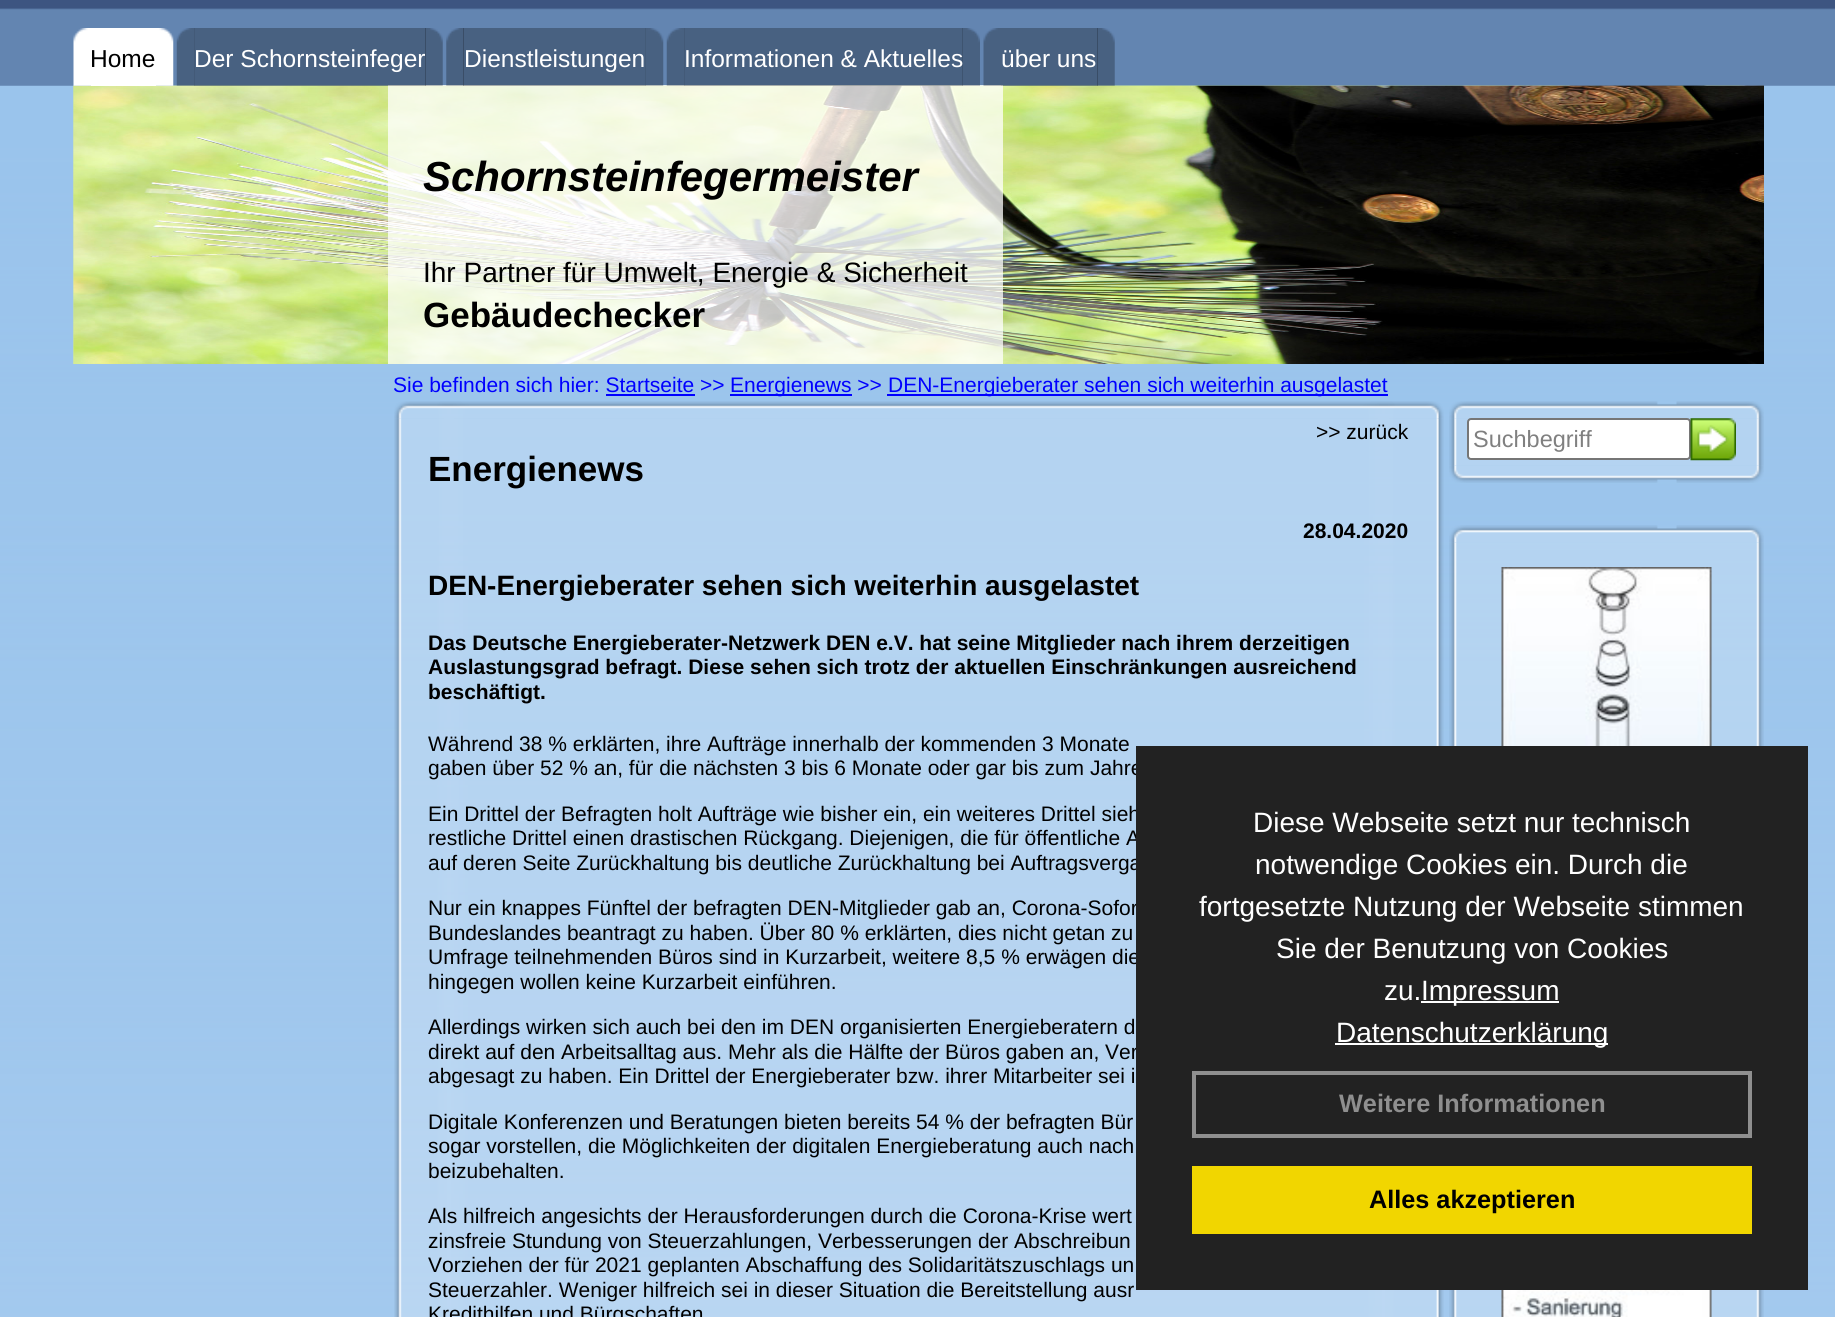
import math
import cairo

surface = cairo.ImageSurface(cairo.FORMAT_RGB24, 1835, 1317)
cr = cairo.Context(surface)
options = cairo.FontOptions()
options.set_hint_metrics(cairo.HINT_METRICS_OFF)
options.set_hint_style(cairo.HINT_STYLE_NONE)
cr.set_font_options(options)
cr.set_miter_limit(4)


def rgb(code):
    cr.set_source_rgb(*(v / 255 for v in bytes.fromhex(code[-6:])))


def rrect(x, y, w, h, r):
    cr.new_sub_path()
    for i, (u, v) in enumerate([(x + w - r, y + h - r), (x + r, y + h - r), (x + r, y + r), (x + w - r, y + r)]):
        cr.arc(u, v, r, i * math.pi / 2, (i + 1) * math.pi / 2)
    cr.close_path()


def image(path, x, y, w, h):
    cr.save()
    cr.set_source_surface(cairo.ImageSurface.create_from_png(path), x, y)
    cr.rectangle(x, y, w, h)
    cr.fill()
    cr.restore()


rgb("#ffffff")
cr.paint()
image("img/1.png", 0, 85, 1835, 1232)
image("img/2.png", 0, 0, 1835, 86)
image("img/13.png", 73, 85, 1691, 279)
image("img/14.png", 73, 85, 1691, 279)
image("img/3.png", 73, 28, 18, 58)
rgb("#ffffff")
cr.rectangle(91, 28, 65, 58)
cr.fill()
image("img/4.png", 156, 28, 18, 58)
image("img/5.png", 176, 28, 19, 58)
cr.set_source_rgba(1, 1, 1, 0.75)
cr.rectangle(388, 85, 615, 279)
cr.fill()
cr.set_source_rgba(0, 0, 0, 0.27)
cr.rectangle(194, 28, 232, 58)
cr.fill()
image("img/7.png", 446, 28, 18, 58)
cr.rectangle(463, 28, 183, 58)
cr.fill()
image("img/8.png", 645, 28, 19, 58)
image("img/9.png", 666, 28, 19, 58)
cr.rectangle(684, 28, 279, 58)
cr.fill()
image("img/10.png", 962, 28, 18, 58)
image("img/11.png", 983, 28, 18, 58)
cr.rectangle(1001, 28, 97, 58)
cr.fill()
image("img/12.png", 1097, 28, 18, 58)
for x, y, w, h, color in [
    (730, 394, 122, 2, "#0000ff"),
    (887, 394, 501, 2, "#0000ff"),
    (606, 394, 89, 2, "#0000ff"),
]:
    rgb(color)
    cr.rectangle(x, y, w, h)
    cr.fill()
image("img/15.png", 394, 401, 1050, 18)
image("img/16.png", 394, 418, 1050, 899)
image("img/17.png", 1449, 401, 315, 18)
image("img/18.png", 1449, 418, 315, 48)
rgb("#ffffff")
rrect(1468, 419, 222, 40, 3)
cr.fill_preserve()
rgb("#767676")
cr.stroke()
image("img/19.png", 1690, 418, 46, 43)
image("img/20.png", 1449, 465, 315, 18)
image("img/21.png", 1449, 525, 315, 18)
image("img/22.png", 1449, 542, 315, 775)
image("img/23.png", 1501, 567, 211, 750)
cr.select_font_face("Liberation Sans")
cr.set_font_size(24.5)
rgb("#000000")
cr.move_to(90, 67)
cr.show_text("Home")
rgb("#ffffff")
cr.move_to(194, 67)
cr.show_text("Der Schornsteinfeger")
image("img/6.png", 425, 28, 18, 58)
for x, y, s in [
    (464, 67, "Dienstleistungen"),
    (684, 67, "Informationen & Aktuelles"),
    (1001, 67, "über uns"),
]:
    cr.move_to(x, y)
    cr.show_text(s)
cr.select_font_face("Liberation Sans", cairo.FONT_SLANT_ITALIC, cairo.FONT_WEIGHT_BOLD)
cr.set_font_size(42)
rgb("#000000")
cr.move_to(423, 191)
cr.show_text("Schornsteinfegermeister")
cr.select_font_face("Liberation Sans")
cr.set_font_size(28)
cr.move_to(423, 282)
cr.show_text("Ihr Partner für Umwelt, Energie & Sicherheit")
cr.select_font_face("Liberation Sans", cairo.FONT_SLANT_NORMAL, cairo.FONT_WEIGHT_BOLD)
cr.set_font_size(35)
cr.move_to(423, 327)
cr.show_text("Gebäudechecker")
cr.select_font_face("Liberation Sans")
cr.set_font_size(21)
rgb("#0000ff")
for x, y, s in [
    (393, 392, "Sie befinden sich hier: Startseite >>"),
    (730, 392, "Energienews >>"),
    (888, 392, "DEN-Energieberater sehen sich weiterhin ausgelastet"),
]:
    cr.move_to(x, y)
    cr.show_text(s)
rgb("#000000")
cr.move_to(1316, 439)
cr.show_text(">> zurück")
cr.select_font_face("Liberation Sans", cairo.FONT_SLANT_NORMAL, cairo.FONT_WEIGHT_BOLD)
cr.set_font_size(35)
cr.move_to(428, 481)
cr.show_text("Energienews")
cr.set_font_size(21)
cr.move_to(1303, 538)
cr.show_text("28.04.2020")
cr.set_font_size(28)
cr.move_to(428, 595)
cr.show_text("DEN-Energieberater sehen sich weiterhin ausgelastet")
cr.set_font_size(21)
for x, y, s in [
    (428, 650, "Das Deutsche Energieberater-Netzwerk DEN e.V. hat seine Mitglieder nach ihrem derzeitigen"),
    (428, 674, "Auslastungsgrad befragt. Diese sehen sich trotz der aktuellen Einschränkungen ausreichend"),
    (428, 699, "beschäftigt."),
]:
    cr.move_to(x, y)
    cr.show_text(s)
cr.select_font_face("Liberation Sans")
for x, y, s in [
    (428, 751, "Während 38 % erklärten, ihre Aufträge innerhalb der kommenden 3 Monate"),
    (428, 775, "gaben über 52 % an, für die nächsten 3 bis 6 Monate oder gar bis zum Jahre"),
    (428, 821, "Ein Drittel der Befragten holt Aufträge wie bisher ein, ein weiteres Drittel sieh"),
    (428, 845, "restliche Drittel einen drastischen Rückgang. Diejenigen, die für öffentliche A"),
    (428, 870, "auf deren Seite Zurückhaltung bis deutliche Zurückhaltung bei Auftragsverga"),
    (428, 915, "Nur ein knappes Fünftel der befragten DEN-Mitglieder gab an, Corona-Sofor"),
    (428, 940, "Bundeslandes beantragt zu haben. Über 80 % erklärten, dies nicht getan zu"),
    (428, 964, "Umfrage teilnehmenden Büros sind in Kurzarbeit, weitere 8,5 % erwägen die"),
    (428, 989, "hingegen wollen keine Kurzarbeit einführen."),
    (428, 1034, "Allerdings wirken sich auch bei den im DEN organisierten Energieberatern d"),
    (428, 1059, "direkt auf den Arbeitsalltag aus. Mehr als die Hälfte der Büros gaben an, Ver"),
    (428, 1083, "abgesagt zu haben. Ein Drittel der Energieberater bzw. ihrer Mitarbeiter sei i"),
    (428, 1129, "Digitale Konferenzen und Beratungen bieten bereits 54 % der befragten Bür"),
    (428, 1153, "sogar vorstellen, die Möglichkeiten der digitalen Energieberatung auch nach"),
    (428, 1178, "beizubehalten."),
    (428, 1223, "Als hilfreich angesichts der Herausforderungen durch die Corona-Krise wert"),
    (428, 1248, "zinsfreie Stundung von Steuerzahlungen, Verbesserungen der Abschreibun"),
    (428, 1272, "Vorziehen der für 2021 geplanten Abschaffung des Solidaritätszuschlags un"),
    (428, 1297, "Steuerzahler. Weniger hilfreich sei in dieser Situation die Bereitstellung ausr"),
    (428, 1321, "Kredithilfen und Bürgschaften"),
]:
    cr.move_to(x, y)
    cr.show_text(s)
cr.set_font_size(23.5)
rgb("#808080")
cr.move_to(1473, 447)
cr.show_text("Suchbegriff")
rgb("#222222")
cr.rectangle(1136, 746, 672, 544)
cr.fill()
cr.set_font_size(28)
rgb("#ffffff")
for x, y, s in [
    (1253, 832, "Diese Webseite setzt nur technisch"),
    (1255, 874, "notwendige Cookies ein. Durch die"),
    (1199, 916, "fortgesetzte Nutzung der Webseite stimmen"),
    (1276, 958, "Sie der Benutzung von Cookies"),
    (1384, 1000, "zu."),
]:
    cr.move_to(x, y)
    cr.show_text(s)
cr.rectangle(1421, 1001, 138, 2)
cr.fill()
cr.move_to(1421, 1000)
cr.show_text("Impressum")
cr.rectangle(1335, 1043, 273, 2)
cr.fill()
cr.move_to(1336, 1042)
cr.show_text("Datenschutzerklärung")
cr.rectangle(1194, 1073, 556, 63)
rgb("#8f8f8f")
cr.set_line_width(4)
cr.stroke()
cr.select_font_face("Liberation Sans", cairo.FONT_SLANT_NORMAL, cairo.FONT_WEIGHT_BOLD)
cr.set_font_size(25.25)
cr.move_to(1339, 1112)
cr.show_text("Weitere Informationen")
rgb("#f1d600")
cr.rectangle(1192, 1166, 560, 68)
cr.fill()
rgb("#000000")
cr.move_to(1369, 1208)
cr.show_text("Alles akzeptieren")
surface.write_to_png("page.png")
